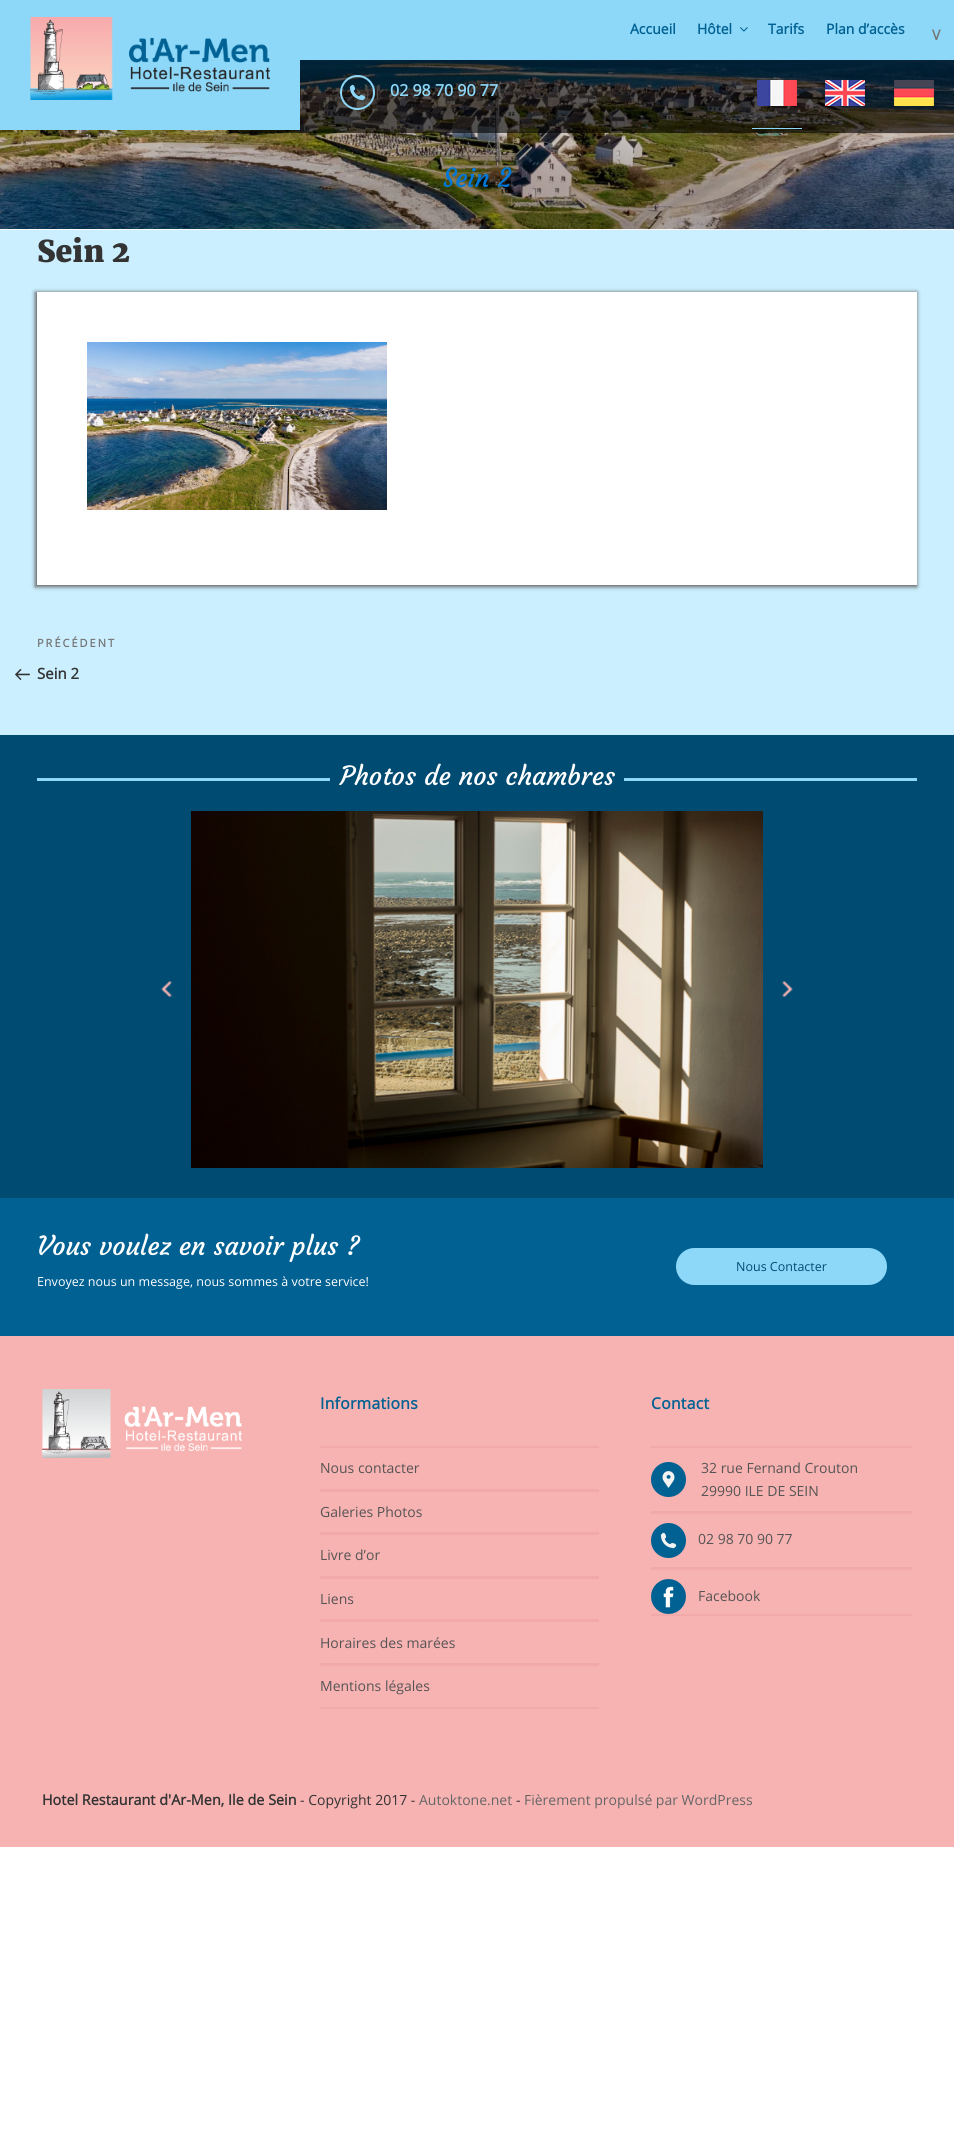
import math
import cairo

surface = cairo.ImageSurface(cairo.FORMAT_RGB24, 954, 2149)
cr = cairo.Context(surface)
options = cairo.FontOptions()
options.set_hint_metrics(cairo.HINT_METRICS_OFF)
options.set_hint_style(cairo.HINT_STYLE_NONE)
cr.set_font_options(options)
cr.set_miter_limit(4)


def rgb(code):
    cr.set_source_rgb(*(v / 255 for v in bytes.fromhex(code[-6:])))


def tracked(x, y, s, letter, word):
    cr.move_to(x, y)
    for ch in s:
        cr.show_text(ch)
        cr.rel_move_to(letter + word * (ch == ' '), 0)


def rrect(x, y, w, h, r):
    cr.new_sub_path()
    for i, (u, v) in enumerate([(x + w - r, y + h - r), (x + r, y + h - r), (x + r, y + r), (x + w - r, y + r)]):
        cr.arc(u, v, r, i * math.pi / 2, (i + 1) * math.pi / 2)
    cr.close_path()


def soft_shadow(x, y, w, h, r, blur, alpha):
    cr.push_group_with_content(cairo.CONTENT_ALPHA)
    cr.set_operator(cairo.OPERATOR_SOURCE)
    for i in range(15, -16, -2):
        e = blur * i / 6
        if min(w, h) + 2 * e > 0:
            cr.set_source_rgba(0, 0, 0, alpha * math.erfc((i - 1) / 8.5) / 2)
            rrect(x - e, y - e, w + 2 * e, h + 2 * e, max(0, min(r + e + blur * .6, min(w, h) / 2 + e)))
            cr.fill()
    cr.mask(cr.pop_group())


def image(path, x, y, w, h):
    cr.save()
    cr.set_source_surface(cairo.ImageSurface.create_from_png(path), x, y)
    cr.rectangle(x, y, w, h)
    cr.fill()
    cr.restore()


rgb("#ffffff")
cr.paint()
rgb("#fafafa")
cr.rectangle(0, 229, 954, 1)
cr.fill()
rgb("#8dd8f8")
cr.rectangle(300, 0, 654, 60)
cr.fill()
image("img/1.png", 740, 27, 8, 5)
image("img/7.png", 0, 60, 954, 169)
cr.set_source_rgba(0, 0, 0, 0.6)
cr.rectangle(229, 60, 725, 73)
cr.fill()
rgb("#8dd8f8")
cr.rectangle(0, 0, 300, 130)
cr.fill()
image("img/2.png", 30, 17, 240, 83)
image("img/3.png", 340, 75, 35, 35)
cr.rectangle(752, 128, 50, 1)
cr.fill()
image("img/4.png", 757, 80, 40, 26)
image("img/5.png", 825, 80, 40, 26)
image("img/6.png", 894, 80, 40, 26)
rgb("#cbefff")
cr.rectangle(0, 230, 954, 505)
cr.fill()
rgb("#656565")
soft_shadow(35, 292, 882, 295, 0, 2, 1)
rgb("#ffffff")
cr.rectangle(37, 292, 880, 293)
cr.fill()
image("img/8.png", 87, 342, 300, 168)
image("img/9.png", 15, 669, 15, 11)
for x, y, w, h, color in [
    (0, 735, 954, 463, "#004b72"),
    (37, 778, 880, 3, "#8dd8f8"),
    (330, 778, 294, 3, "#004b72"),
]:
    rgb(color)
    cr.rectangle(x, y, w, h)
    cr.fill()
image("img/10.png", 191, 811, 572, 357)
image("img/11.png", 161, 981, 11, 16)
image("img/12.png", 782, 981, 11, 16)
rgb("#016193")
cr.rectangle(0, 1198, 954, 138)
cr.fill()
rgb("#8dd8f8")
rrect(676, 1248, 211, 37, 18.5)
cr.fill()
rgb("#f7b3b2")
cr.rectangle(0, 1336, 954, 511)
cr.fill()
image("img/13.png", 42, 1389, 200, 69)
for x, y, w, h, color in [
    (320, 1446, 279, 2, "#f2a9a9"),
    (320, 1489, 279, 3, "#f2a9a9"),
    (320, 1532, 279, 3, "#f2a9a9"),
    (320, 1576, 279, 3, "#f2a9a9"),
    (320, 1619, 279, 3, "#f2a9a9"),
    (320, 1663, 279, 3, "#f2a9a9"),
    (320, 1707, 279, 2, "#f2a9a9"),
    (651, 1446, 261, 2, "#f2a9a9"),
    (651, 1511, 261, 3, "#f2a9a9"),
]:
    rgb(color)
    cr.rectangle(x, y, w, h)
    cr.fill()
image("img/14.png", 651, 1462, 35, 35)
cr.rectangle(651, 1567, 261, 3)
cr.fill()
image("img/15.png", 651, 1523, 35, 35)
cr.rectangle(651, 1614, 261, 2)
cr.fill()
image("img/16.png", 651, 1579, 35, 35)
cr.select_font_face("Open Sans", cairo.FONT_SLANT_NORMAL, cairo.FONT_WEIGHT_BOLD)
cr.set_font_size(14)
rgb("#016193")
for x, y, s in [
    (630, 34, "Accueil"),
    (697, 34, "Hôtel"),
    (768, 34, "Tarifs"),
    (826, 34, "Plan d’accès"),
]:
    cr.move_to(x, y)
    cr.show_text(s)
rgb("#767676")
cr.move_to(932, 40)
cr.show_text("V")
cr.set_font_size(16)
rgb("#8dd8f8")
cr.move_to(390, 96)
cr.show_text("02 98 70 90 77")
cr.select_font_face("Courgette")
cr.set_font_size(26)
rgb("#0078d7")
cr.move_to(443, 187)
cr.show_text("Sein 2")
cr.select_font_face("Merriweather Black")
cr.set_font_size(30)
rgb("#333333")
cr.move_to(37, 262)
cr.show_text("Sein 2")
cr.select_font_face("Open Sans", cairo.FONT_SLANT_NORMAL, cairo.FONT_WEIGHT_BOLD)
cr.set_font_size(11)
rgb("#767676")
tracked(37, 647, "PRÉCÉDENT", 2, 0)
cr.set_font_size(15)
rgb("#333333")
cr.move_to(37, 679)
cr.show_text("Sein 2")
cr.select_font_face("Courgette")
cr.set_font_size(26)
rgb("#ffffff")
cr.move_to(340, 785)
cr.show_text("Photos de nos chambres")
cr.move_to(37, 1255)
cr.show_text("Vous voulez en savoir plus ?")
cr.select_font_face("Open Sans")
cr.set_font_size(12.5)
cr.move_to(37, 1286)
cr.show_text("Envoyez nous un message, nous sommes à votre service!")
rgb("#004b72")
cr.move_to(736, 1271)
cr.show_text("Nous Contacter")
cr.select_font_face("Open Sans", cairo.FONT_SLANT_NORMAL, cairo.FONT_WEIGHT_BOLD)
cr.set_font_size(15.75)
rgb("#016193")
tracked(320, 1409, "Informations", 0.25, 0)
cr.select_font_face("Open Sans")
cr.set_font_size(14)
rgb("#565455")
for x, y, s in [
    (320, 1473, "Nous contacter"),
    (320, 1517, "Galeries Photos"),
    (320, 1560, "Livre d’or"),
    (320, 1604, "Liens"),
    (320, 1648, "Horaires des marées"),
    (320, 1691, "Mentions légales"),
]:
    cr.move_to(x, y)
    cr.show_text(s)
cr.select_font_face("Open Sans", cairo.FONT_SLANT_NORMAL, cairo.FONT_WEIGHT_BOLD)
cr.set_font_size(15.75)
rgb("#016193")
tracked(651, 1409, "Contact", 0.25, 0)
cr.select_font_face("Open Sans")
cr.set_font_size(14)
rgb("#565455")
for x, y, s in [
    (701, 1473, "32 rue Fernand Crouton"),
    (701, 1496, "29990 ILE DE SEIN"),
    (698, 1544, "02 98 70 90 77"),
    (698, 1601, "Facebook"),
]:
    cr.move_to(x, y)
    cr.show_text(s)
cr.select_font_face("Open Sans", cairo.FONT_SLANT_NORMAL, cairo.FONT_WEIGHT_BOLD)
cr.set_font_size(14.4)
rgb("#333333")
cr.move_to(42, 1805)
cr.show_text("Hotel Restaurant d'Ar-Men, Ile de Sein")
cr.select_font_face("Open Sans")
cr.set_font_size(14)
cr.move_to(300, 1805)
cr.show_text("- Copyright 2017 -")
rgb("#666666")
cr.move_to(419, 1805)
cr.show_text("Autoktone.net")
rgb("#333333")
cr.move_to(516, 1805)
cr.show_text("-")
rgb("#666666")
cr.move_to(524, 1805)
cr.show_text("Fièrement propulsé par WordPress")
surface.write_to_png("page.png")
